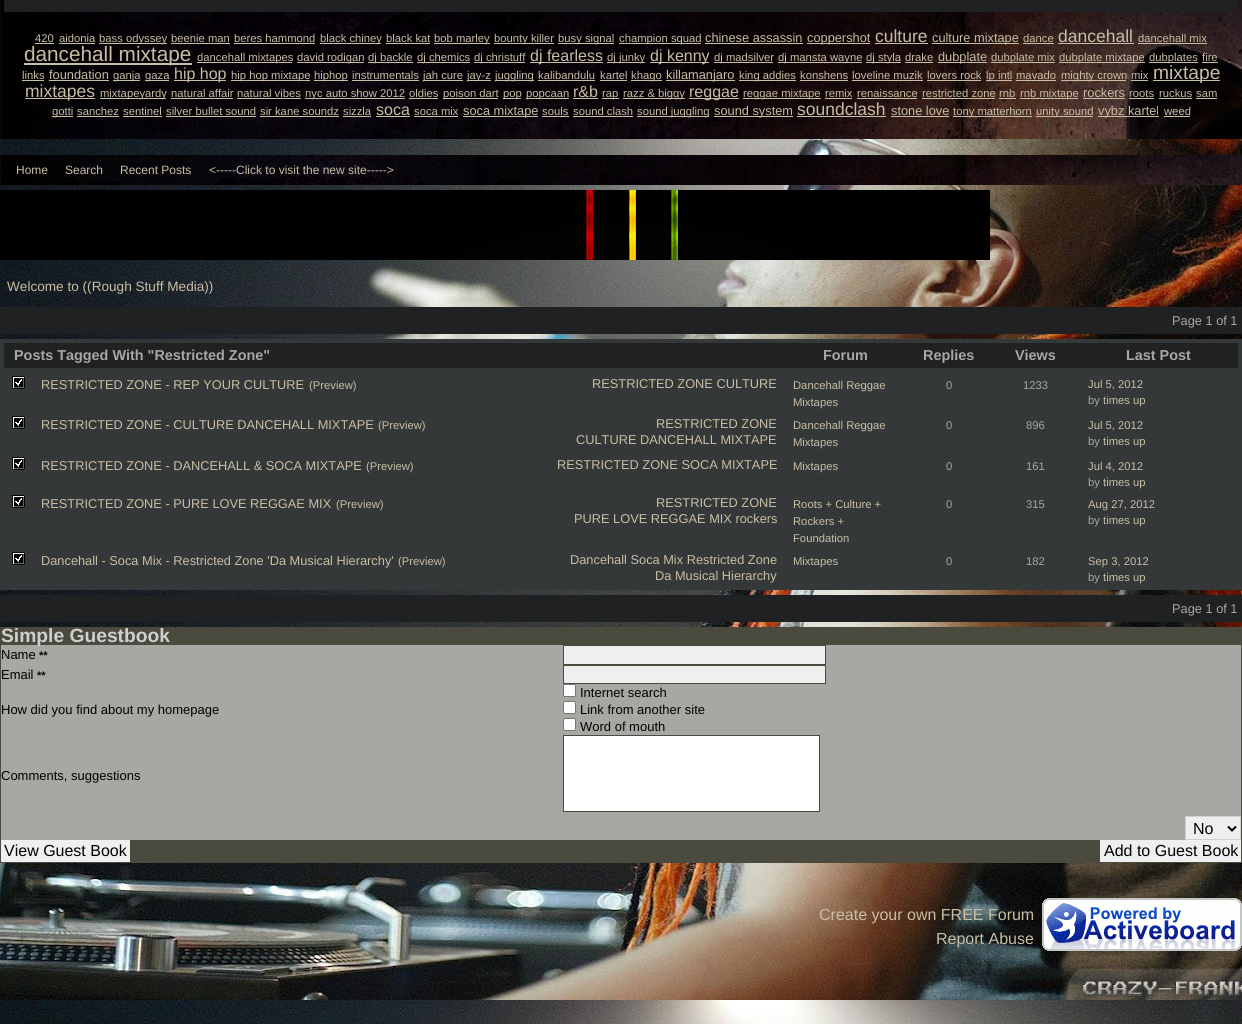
import math
import cairo

surface = cairo.ImageSurface(cairo.FORMAT_RGB24, 1242, 1024)
cr = cairo.Context(surface)
options = cairo.FontOptions()
options.set_hint_metrics(cairo.HINT_METRICS_OFF)
options.set_hint_style(cairo.HINT_STYLE_NONE)
cr.set_font_options(options)
cr.set_miter_limit(4)


def rgb(code):
    cr.set_source_rgb(*(v / 255 for v in bytes.fromhex(code[-6:])))


def rrect(x, y, w, h, r):
    cr.new_sub_path()
    for i, (u, v) in enumerate([(x + w - r, y + h - r), (x + r, y + h - r), (x + r, y + r), (x + w - r, y + r)]):
        cr.arc(u, v, r, i * math.pi / 2, (i + 1) * math.pi / 2)
    cr.close_path()


def image(path, x, y, w, h):
    cr.save()
    cr.set_source_surface(cairo.ImageSurface.create_from_png(path), x, y)
    cr.rectangle(x, y, w, h)
    cr.fill()
    cr.restore()


rgb("#ffffff")
cr.paint()
image("img/1.png", 0, 139, 1242, 885)
image("img/2.png", 0, 0, 1242, 139)
for x, y, w, h, color in [
    (4, 0, 1234, 12, "#202123"),
    (35, 43, 19, 1, "#c8bea4"),
    (59, 43, 36, 1, "#c8bea4"),
    (99, 43, 68, 1, "#c8bea4"),
    (171, 43, 59, 1, "#c8bea4"),
    (234, 43, 81, 1, "#c8bea4"),
    (320, 43, 61, 1, "#c8bea4"),
    (386, 43, 44, 1, "#c8bea4"),
    (434, 43, 56, 1, "#c8bea4"),
    (494, 43, 60, 1, "#c8bea4"),
    (558, 43, 56, 1, "#c8bea4"),
    (619, 43, 82, 1, "#c8bea4"),
    (705, 43, 98, 1, "#c8bea4"),
    (807, 43, 63, 1, "#c8bea4"),
    (875, 43, 53, 1, "#c8bea4"),
    (932, 43, 87, 1, "#c8bea4"),
    (1023, 43, 31, 1, "#c8bea4"),
    (1058, 43, 76, 1, "#c8bea4"),
    (1138, 43, 69, 1, "#c8bea4"),
    (24, 63, 168, 2, "#c8bea4"),
    (197, 62, 95, 1, "#c8bea4"),
    (297, 62, 67, 1, "#c8bea4"),
    (368, 62, 45, 1, "#c8bea4"),
    (417, 62, 53, 1, "#c8bea4"),
    (474, 62, 51, 1, "#c8bea4"),
    (530, 62, 73, 1, "#c8bea4"),
    (607, 62, 38, 1, "#c8bea4"),
    (650, 62, 59, 1, "#c8bea4"),
    (714, 62, 59, 1, "#c8bea4"),
    (778, 62, 84, 1, "#c8bea4"),
    (866, 62, 35, 1, "#c8bea4"),
    (905, 62, 28, 1, "#c8bea4"),
    (938, 62, 49, 1, "#c8bea4"),
    (991, 62, 64, 1, "#c8bea4"),
    (1059, 62, 86, 1, "#c8bea4"),
    (1149, 62, 49, 1, "#c8bea4"),
    (1202, 62, 16, 1, "#c8bea4"),
    (22, 80, 22, 1, "#c8bea4"),
    (49, 80, 60, 1, "#c8bea4"),
    (113, 80, 27, 1, "#c8bea4"),
    (145, 80, 24, 1, "#c8bea4"),
    (174, 80, 52, 1, "#c8bea4"),
    (231, 80, 79, 1, "#c8bea4"),
    (314, 80, 34, 1, "#c8bea4"),
    (352, 80, 67, 1, "#c8bea4"),
    (423, 80, 40, 1, "#c8bea4"),
    (467, 80, 24, 1, "#c8bea4"),
    (495, 80, 39, 1, "#c8bea4"),
    (538, 80, 57, 1, "#c8bea4"),
    (600, 80, 27, 1, "#c8bea4"),
    (631, 80, 31, 1, "#c8bea4"),
    (666, 80, 69, 1, "#c8bea4"),
    (739, 80, 57, 1, "#c8bea4"),
    (800, 80, 48, 1, "#c8bea4"),
    (852, 80, 71, 1, "#c8bea4"),
    (927, 80, 54, 1, "#c8bea4"),
    (986, 80, 26, 1, "#c8bea4"),
    (1016, 80, 40, 1, "#c8bea4"),
    (1061, 80, 65, 1, "#c8bea4"),
    (1131, 80, 17, 1, "#c8bea4"),
    (1153, 80, 67, 1, "#c8bea4"),
    (25, 98, 70, 1, "#c8bea4"),
    (100, 98, 66, 1, "#c8bea4"),
    (171, 98, 62, 1, "#c8bea4"),
    (237, 98, 64, 1, "#c8bea4"),
    (305, 98, 100, 1, "#c8bea4"),
    (409, 98, 29, 1, "#c8bea4"),
    (443, 98, 55, 1, "#c8bea4"),
    (503, 98, 18, 1, "#c8bea4"),
    (526, 98, 43, 1, "#c8bea4"),
    (573, 98, 25, 1, "#c8bea4"),
    (602, 98, 17, 1, "#c8bea4"),
    (623, 98, 62, 1, "#c8bea4"),
    (689, 98, 50, 1, "#c8bea4"),
    (743, 98, 78, 1, "#c8bea4"),
    (825, 98, 27, 1, "#c8bea4"),
    (857, 98, 60, 1, "#c8bea4"),
    (922, 98, 73, 1, "#c8bea4"),
    (999, 98, 17, 1, "#c8bea4"),
    (1020, 98, 58, 1, "#c8bea4"),
    (1083, 98, 42, 1, "#c8bea4"),
    (1129, 98, 25, 1, "#c8bea4"),
    (1159, 98, 33, 1, "#c8bea4"),
    (1196, 98, 21, 1, "#c8bea4"),
    (52, 116, 21, 1, "#c8bea4"),
    (77, 116, 42, 1, "#c8bea4"),
    (123, 116, 39, 1, "#c8bea4"),
    (166, 116, 90, 1, "#c8bea4"),
    (260, 116, 79, 1, "#c8bea4"),
    (343, 116, 28, 1, "#c8bea4"),
    (376, 116, 34, 1, "#c8bea4"),
    (414, 116, 44, 1, "#c8bea4"),
    (463, 116, 75, 1, "#c8bea4"),
    (542, 116, 27, 1, "#c8bea4"),
    (573, 116, 60, 1, "#c8bea4"),
    (637, 116, 72, 1, "#c8bea4"),
    (714, 116, 79, 1, "#c8bea4"),
    (797, 116, 89, 1, "#c8bea4"),
    (891, 116, 58, 1, "#c8bea4"),
    (953, 116, 79, 1, "#c8bea4"),
    (1036, 116, 57, 1, "#c8bea4"),
    (1098, 116, 61, 1, "#c8bea4"),
    (1164, 116, 26, 1, "#c8bea4"),
]:
    rgb(color)
    cr.rectangle(x, y, w, h)
    cr.fill()
image("img/3.png", 0, 155, 1242, 30)
image("img/4.png", 0, 190, 990, 70)
for x, y, w, h, color in [
    (0, 307, 1242, 27, "#202123"),
    (0, 339, 1242, 251, "#343839"),
    (4, 343, 1234, 25, "#202123"),
]:
    rgb(color)
    cr.rectangle(x, y, w, h)
    cr.fill()
image("img/5.png", 12, 376, 13, 13)
image("img/5.png", 12, 416, 13, 13)
image("img/5.png", 12, 457, 13, 13)
image("img/5.png", 12, 495, 13, 13)
image("img/5.png", 12, 552, 13, 13)
for x, y, w, h, color in [
    (0, 595, 1242, 27, "#202123"),
    (1, 645, 1240, 195, "#a7a7a3"),
    (0, 627, 1242, 1, "#4a4a3e"),
    (1241, 627, 1, 236, "#4a4a3e"),
    (0, 862, 1242, 1, "#4a4a3e"),
    (0, 627, 1, 236, "#4a4a3e"),
    (1, 628, 1240, 17, "#4a4a3e"),
]:
    rgb(color)
    cr.rectangle(x, y, w, h)
    cr.fill()
rgb("#efefef")
cr.rectangle(563.5, 645.5, 262, 19)
cr.fill_preserve()
rgb("#4a4a3e")
cr.set_line_width(1)
cr.stroke()
rgb("#efefef")
cr.rectangle(563.5, 665.5, 262, 18)
cr.fill_preserve()
rgb("#4a4a3e")
cr.stroke()
rgb("#ffffff")
rrect(563.5, 684.5, 12, 12, 1.5)
cr.fill_preserve()
rgb("#767676")
cr.stroke()
rgb("#ffffff")
rrect(563.5, 701.5, 12, 12, 1.5)
cr.fill_preserve()
rgb("#767676")
cr.stroke()
rgb("#ffffff")
rrect(563.5, 718.5, 12, 12, 1.5)
cr.fill_preserve()
rgb("#767676")
cr.stroke()
rgb("#ffffff")
cr.rectangle(563.5, 735.5, 256, 76)
cr.fill_preserve()
rgb("#4a4a3e")
cr.stroke()
rgb("#efefef")
cr.rectangle(1185.5, 816.5, 55, 23)
cr.fill_preserve()
rgb("#d1d1d1")
cr.stroke()
cr.new_path()
cr.move_to(1228, 826.5)
cr.line_to(1232, 830.5)
cr.line_to(1236, 826.5)
rgb("#000000")
cr.set_line_width(2)
cr.stroke()
for x, y, w, h, color in [
    (130, 840, 970, 22, "#4a4a3e"),
    (1, 840, 129, 22, "#efefef"),
    (1100, 840, 141, 22, "#efefef"),
]:
    rgb(color)
    cr.rectangle(x, y, w, h)
    cr.fill()
image("img/6.png", 1042, 898, 200, 53)
cr.select_font_face("Liberation Sans")
cr.set_font_size(11.25)
rgb("#c8bea4")
for x, y, s in [
    (35, 42, "420"),
    (59, 42, "aidonia"),
    (99, 42, "bass odyssey"),
    (171, 42, "beenie man"),
    (234, 42, "beres hammond"),
    (320, 42, "black chiney"),
    (386, 42, "black kat"),
    (434, 42, "bob marley"),
    (494, 42, "bounty killer"),
    (558, 42, "busy signal"),
    (619, 42, "champion squad"),
]:
    cr.move_to(x, y)
    cr.show_text(s)
cr.set_font_size(12.8)
cr.move_to(705, 42)
cr.show_text("chinese assassin")
cr.move_to(807, 42)
cr.show_text("coppershot")
cr.set_font_size(17.5)
cr.move_to(875, 42)
cr.show_text("culture")
cr.set_font_size(12.8)
cr.move_to(932, 42)
cr.show_text("culture mixtape")
cr.set_font_size(11.25)
cr.move_to(1023, 42)
cr.show_text("dance")
cr.set_font_size(17.5)
cr.move_to(1058, 42)
cr.show_text("dancehall")
cr.set_font_size(11.25)
cr.move_to(1138, 42)
cr.show_text("dancehall mix")
cr.set_font_size(20.75)
cr.move_to(24, 61)
cr.show_text("dancehall mixtape")
cr.set_font_size(11.25)
for x, y, s in [
    (197, 61, "dancehall mixtapes"),
    (297, 61, "david rodigan"),
    (368, 61, "dj backle"),
    (417, 61, "dj chemics"),
    (474, 61, "dj christuff"),
]:
    cr.move_to(x, y)
    cr.show_text(s)
cr.set_font_size(16)
cr.move_to(530, 61)
cr.show_text("dj fearless")
cr.set_font_size(11.25)
cr.move_to(607, 61)
cr.show_text("dj junky")
cr.set_font_size(16)
cr.move_to(650, 61)
cr.show_text("dj kenny")
cr.set_font_size(11.25)
for x, y, s in [
    (714, 61, "dj madsilver"),
    (778, 61, "dj mansta wayne"),
    (866, 61, "dj styla"),
    (905, 61, "drake"),
]:
    cr.move_to(x, y)
    cr.show_text(s)
cr.set_font_size(12.8)
cr.move_to(938, 61)
cr.show_text("dubplate")
cr.set_font_size(11.25)
for x, y, s in [
    (991, 61, "dubplate mix"),
    (1059, 61, "dubplate mixtape"),
    (1149, 61, "dubplates"),
    (1202, 61, "fire"),
    (22, 79, "links"),
]:
    cr.move_to(x, y)
    cr.show_text(s)
cr.set_font_size(12.8)
cr.move_to(49, 79)
cr.show_text("foundation")
cr.set_font_size(11.25)
cr.move_to(113, 79)
cr.show_text("ganja")
cr.move_to(145, 79)
cr.show_text("gaza")
cr.set_font_size(16)
cr.move_to(174, 79)
cr.show_text("hip hop")
cr.set_font_size(11.25)
for x, y, s in [
    (231, 79, "hip hop mixtape"),
    (314, 79, "hiphop"),
    (352, 79, "instrumentals"),
    (423, 79, "jah cure"),
    (467, 79, "jay-z"),
    (495, 79, "juggling"),
    (538, 79, "kalibandulu"),
    (600, 79, "kartel"),
    (631, 79, "khago"),
]:
    cr.move_to(x, y)
    cr.show_text(s)
cr.set_font_size(12.8)
cr.move_to(666, 79)
cr.show_text("killamanjaro")
cr.set_font_size(11.25)
for x, y, s in [
    (739, 79, "king addies"),
    (800, 79, "konshens"),
    (852, 79, "loveline muzik"),
    (927, 79, "lovers rock"),
    (986, 79, "lp intl"),
    (1016, 79, "mavado"),
    (1061, 79, "mighty crown"),
    (1131, 79, "mix"),
]:
    cr.move_to(x, y)
    cr.show_text(s)
cr.set_font_size(19.25)
cr.move_to(1153, 79)
cr.show_text("mixtape")
cr.set_font_size(17.5)
cr.move_to(25, 97)
cr.show_text("mixtapes")
cr.set_font_size(11.25)
for x, y, s in [
    (100, 97, "mixtapeyardy"),
    (171, 97, "natural affair"),
    (237, 97, "natural vibes"),
    (305, 97, "nyc auto show 2012"),
    (409, 97, "oldies"),
    (443, 97, "poison dart"),
    (503, 97, "pop"),
    (526, 97, "popcaan"),
]:
    cr.move_to(x, y)
    cr.show_text(s)
cr.set_font_size(16)
cr.move_to(573, 97)
cr.show_text("r&b")
cr.set_font_size(11.25)
cr.move_to(602, 97)
cr.show_text("rap")
cr.move_to(623, 97)
cr.show_text("razz & biggy")
cr.set_font_size(16)
cr.move_to(689, 97)
cr.show_text("reggae")
cr.set_font_size(11.25)
for x, y, s in [
    (743, 97, "reggae mixtape"),
    (825, 97, "remix"),
    (857, 97, "renaissance"),
    (922, 97, "restricted zone"),
    (999, 97, "rnb"),
    (1020, 97, "rnb mixtape"),
]:
    cr.move_to(x, y)
    cr.show_text(s)
cr.set_font_size(12.8)
cr.move_to(1083, 97)
cr.show_text("rockers")
cr.set_font_size(11.25)
for x, y, s in [
    (1129, 97, "roots"),
    (1159, 97, "ruckus"),
    (1196, 97, "sam"),
    (52, 115, "gotti"),
    (77, 115, "sanchez"),
    (123, 115, "sentinel"),
    (166, 115, "silver bullet sound"),
    (260, 115, "sir kane soundz"),
    (343, 115, "sizzla"),
]:
    cr.move_to(x, y)
    cr.show_text(s)
cr.set_font_size(16)
cr.move_to(376, 115)
cr.show_text("soca")
cr.set_font_size(11.25)
cr.move_to(414, 115)
cr.show_text("soca mix")
cr.set_font_size(12.8)
cr.move_to(463, 115)
cr.show_text("soca mixtape")
cr.set_font_size(11.25)
for x, y, s in [
    (542, 115, "souls"),
    (573, 115, "sound clash"),
    (637, 115, "sound juggling"),
]:
    cr.move_to(x, y)
    cr.show_text(s)
cr.set_font_size(12.8)
cr.move_to(714, 115)
cr.show_text("sound system")
cr.set_font_size(17.5)
cr.move_to(797, 115)
cr.show_text("soundclash")
cr.set_font_size(12.8)
cr.move_to(891, 115)
cr.show_text("stone love")
cr.set_font_size(11.25)
cr.move_to(953, 115)
cr.show_text("tony matterhorn")
cr.move_to(1036, 115)
cr.show_text("unity sound")
cr.set_font_size(12.8)
cr.move_to(1098, 115)
cr.show_text("vybz kartel")
cr.set_font_size(11.25)
cr.move_to(1164, 115)
cr.show_text("weed")
cr.set_font_size(12)
for x, y, s in [
    (16, 174, "Home"),
    (65, 174, "Search"),
    (120, 174, "Recent Posts"),
    (209, 174, "<-----Click to visit the new site----->"),
]:
    cr.move_to(x, y)
    cr.show_text(s)
cr.set_font_size(13.6)
cr.move_to(7, 291)
cr.show_text("Welcome to ((Rough Stuff Media))")
cr.set_font_size(12.8)
rgb("#a7a7a3")
cr.move_to(1172, 325)
cr.show_text("Page 1 of 1")
cr.select_font_face("Liberation Sans", cairo.FONT_SLANT_NORMAL, cairo.FONT_WEIGHT_BOLD)
cr.set_font_size(14.4)
for x, y, s in [
    (14, 360, "Posts Tagged With \"Restricted Zone\""),
    (823, 360, "Forum"),
    (923, 360, "Replies"),
    (1015, 360, "Views"),
    (1126, 360, "Last Post"),
]:
    cr.move_to(x, y)
    cr.show_text(s)
cr.select_font_face("Liberation Sans")
cr.set_font_size(12.8)
rgb("#c8bea4")
cr.move_to(41, 389)
cr.show_text("RESTRICTED ZONE - REP YOUR CULTURE")
cr.set_font_size(11.25)
cr.move_to(309, 389)
cr.show_text("(Preview)")
cr.set_font_size(12.8)
cr.move_to(592, 388)
cr.show_text("RESTRICTED ZONE CULTURE")
cr.set_font_size(11.25)
cr.move_to(793, 389)
cr.show_text("Dancehall Reggae")
cr.move_to(793, 406)
cr.show_text("Mixtapes")
rgb("#a7a7a3")
cr.move_to(946, 389)
cr.show_text("0")
cr.move_to(1023, 389)
cr.show_text("1233")
rgb("#c8bea4")
cr.move_to(1088, 388)
cr.show_text("Jul 5, 2012")
rgb("#a7a7a3")
cr.move_to(1088, 404)
cr.show_text("by")
rgb("#c8bea4")
cr.move_to(1103, 404)
cr.show_text("times up")
cr.set_font_size(12.8)
cr.move_to(41, 429)
cr.show_text("RESTRICTED ZONE - CULTURE DANCEHALL MIXTAPE")
cr.set_font_size(11.25)
cr.move_to(378, 429)
cr.show_text("(Preview)")
cr.set_font_size(12.8)
cr.move_to(656, 428)
cr.show_text("RESTRICTED ZONE")
cr.move_to(576, 444)
cr.show_text("CULTURE DANCEHALL MIXTAPE")
cr.set_font_size(11.25)
cr.move_to(793, 429)
cr.show_text("Dancehall Reggae")
cr.move_to(793, 446)
cr.show_text("Mixtapes")
rgb("#a7a7a3")
cr.move_to(946, 429)
cr.show_text("0")
cr.move_to(1026, 429)
cr.show_text("896")
rgb("#c8bea4")
cr.move_to(1088, 429)
cr.show_text("Jul 5, 2012")
rgb("#a7a7a3")
cr.move_to(1088, 445)
cr.show_text("by")
rgb("#c8bea4")
cr.move_to(1103, 445)
cr.show_text("times up")
cr.set_font_size(12.8)
cr.move_to(41, 470)
cr.show_text("RESTRICTED ZONE - DANCEHALL & SOCA MIXTAPE")
cr.set_font_size(11.25)
cr.move_to(366, 470)
cr.show_text("(Preview)")
cr.set_font_size(12.8)
cr.move_to(557, 469)
cr.show_text("RESTRICTED ZONE SOCA MIXTAPE")
cr.set_font_size(11.25)
cr.move_to(793, 470)
cr.show_text("Mixtapes")
rgb("#a7a7a3")
cr.move_to(946, 470)
cr.show_text("0")
cr.move_to(1026, 470)
cr.show_text("161")
rgb("#c8bea4")
cr.move_to(1088, 470)
cr.show_text("Jul 4, 2012")
rgb("#a7a7a3")
cr.move_to(1088, 486)
cr.show_text("by")
rgb("#c8bea4")
cr.move_to(1103, 486)
cr.show_text("times up")
cr.set_font_size(12.8)
cr.move_to(41, 508)
cr.show_text("RESTRICTED ZONE - PURE LOVE REGGAE MIX")
cr.set_font_size(11.25)
cr.move_to(336, 508)
cr.show_text("(Preview)")
cr.set_font_size(12.8)
cr.move_to(656, 507)
cr.show_text("RESTRICTED ZONE")
cr.move_to(574, 523)
cr.show_text("PURE LOVE REGGAE MIX rockers")
cr.set_font_size(11.25)
for x, y, s in [
    (793, 508, "Roots + Culture +"),
    (793, 525, "Rockers +"),
    (793, 542, "Foundation"),
]:
    cr.move_to(x, y)
    cr.show_text(s)
rgb("#a7a7a3")
cr.move_to(946, 508)
cr.show_text("0")
cr.move_to(1026, 508)
cr.show_text("315")
rgb("#c8bea4")
cr.move_to(1088, 508)
cr.show_text("Aug 27, 2012")
rgb("#a7a7a3")
cr.move_to(1088, 524)
cr.show_text("by")
rgb("#c8bea4")
cr.move_to(1103, 524)
cr.show_text("times up")
cr.set_font_size(12.8)
cr.move_to(41, 565)
cr.show_text("Dancehall - Soca Mix - Restricted Zone 'Da Musical Hierarchy'")
cr.set_font_size(11.25)
cr.move_to(398, 565)
cr.show_text("(Preview)")
cr.set_font_size(12.8)
cr.move_to(570, 564)
cr.show_text("Dancehall Soca Mix Restricted Zone")
cr.move_to(655, 580)
cr.show_text("Da Musical Hierarchy")
cr.set_font_size(11.25)
cr.move_to(793, 565)
cr.show_text("Mixtapes")
rgb("#a7a7a3")
cr.move_to(946, 565)
cr.show_text("0")
cr.move_to(1026, 565)
cr.show_text("182")
rgb("#c8bea4")
cr.move_to(1088, 565)
cr.show_text("Sep 3, 2012")
rgb("#a7a7a3")
cr.move_to(1088, 581)
cr.show_text("by")
rgb("#c8bea4")
cr.move_to(1103, 581)
cr.show_text("times up")
cr.set_font_size(12.8)
rgb("#a7a7a3")
cr.move_to(1172, 613)
cr.show_text("Page 1 of 1")
cr.select_font_face("Liberation Sans", cairo.FONT_SLANT_NORMAL, cairo.FONT_WEIGHT_BOLD)
cr.set_font_size(19.25)
rgb("#cfcfcf")
cr.move_to(1, 642)
cr.show_text("Simple Guestbook")
cr.select_font_face("Liberation Sans")
cr.set_font_size(13)
rgb("#000000")
cr.move_to(1, 659)
cr.show_text("Name")
cr.select_font_face("Liberation Sans", cairo.FONT_SLANT_NORMAL, cairo.FONT_WEIGHT_BOLD)
cr.set_font_size(11)
cr.move_to(39, 659)
cr.show_text("**")
cr.select_font_face("Liberation Sans")
cr.set_font_size(13)
cr.move_to(1, 679)
cr.show_text("Email")
cr.select_font_face("Liberation Sans", cairo.FONT_SLANT_NORMAL, cairo.FONT_WEIGHT_BOLD)
cr.set_font_size(11)
cr.move_to(37, 679)
cr.show_text("**")
cr.select_font_face("Liberation Sans")
cr.set_font_size(13)
for x, y, s in [
    (1, 714, "How did you find about my homepage"),
    (580, 697, "Internet search"),
    (580, 714, "Link from another site"),
    (580, 731, "Word of mouth"),
    (1, 780, "Comments, suggestions"),
]:
    cr.move_to(x, y)
    cr.show_text(s)
cr.set_font_size(16)
for x, y, s in [
    (1193, 834, "No"),
    (4, 856, "View Guest Book"),
    (1104, 856, "Add to Guest Book"),
]:
    cr.move_to(x, y)
    cr.show_text(s)
rgb("#c8bea4")
cr.move_to(819, 920)
cr.show_text("Create your own FREE Forum")
cr.move_to(936, 944)
cr.show_text("Report Abuse")
surface.write_to_png("page.png")
